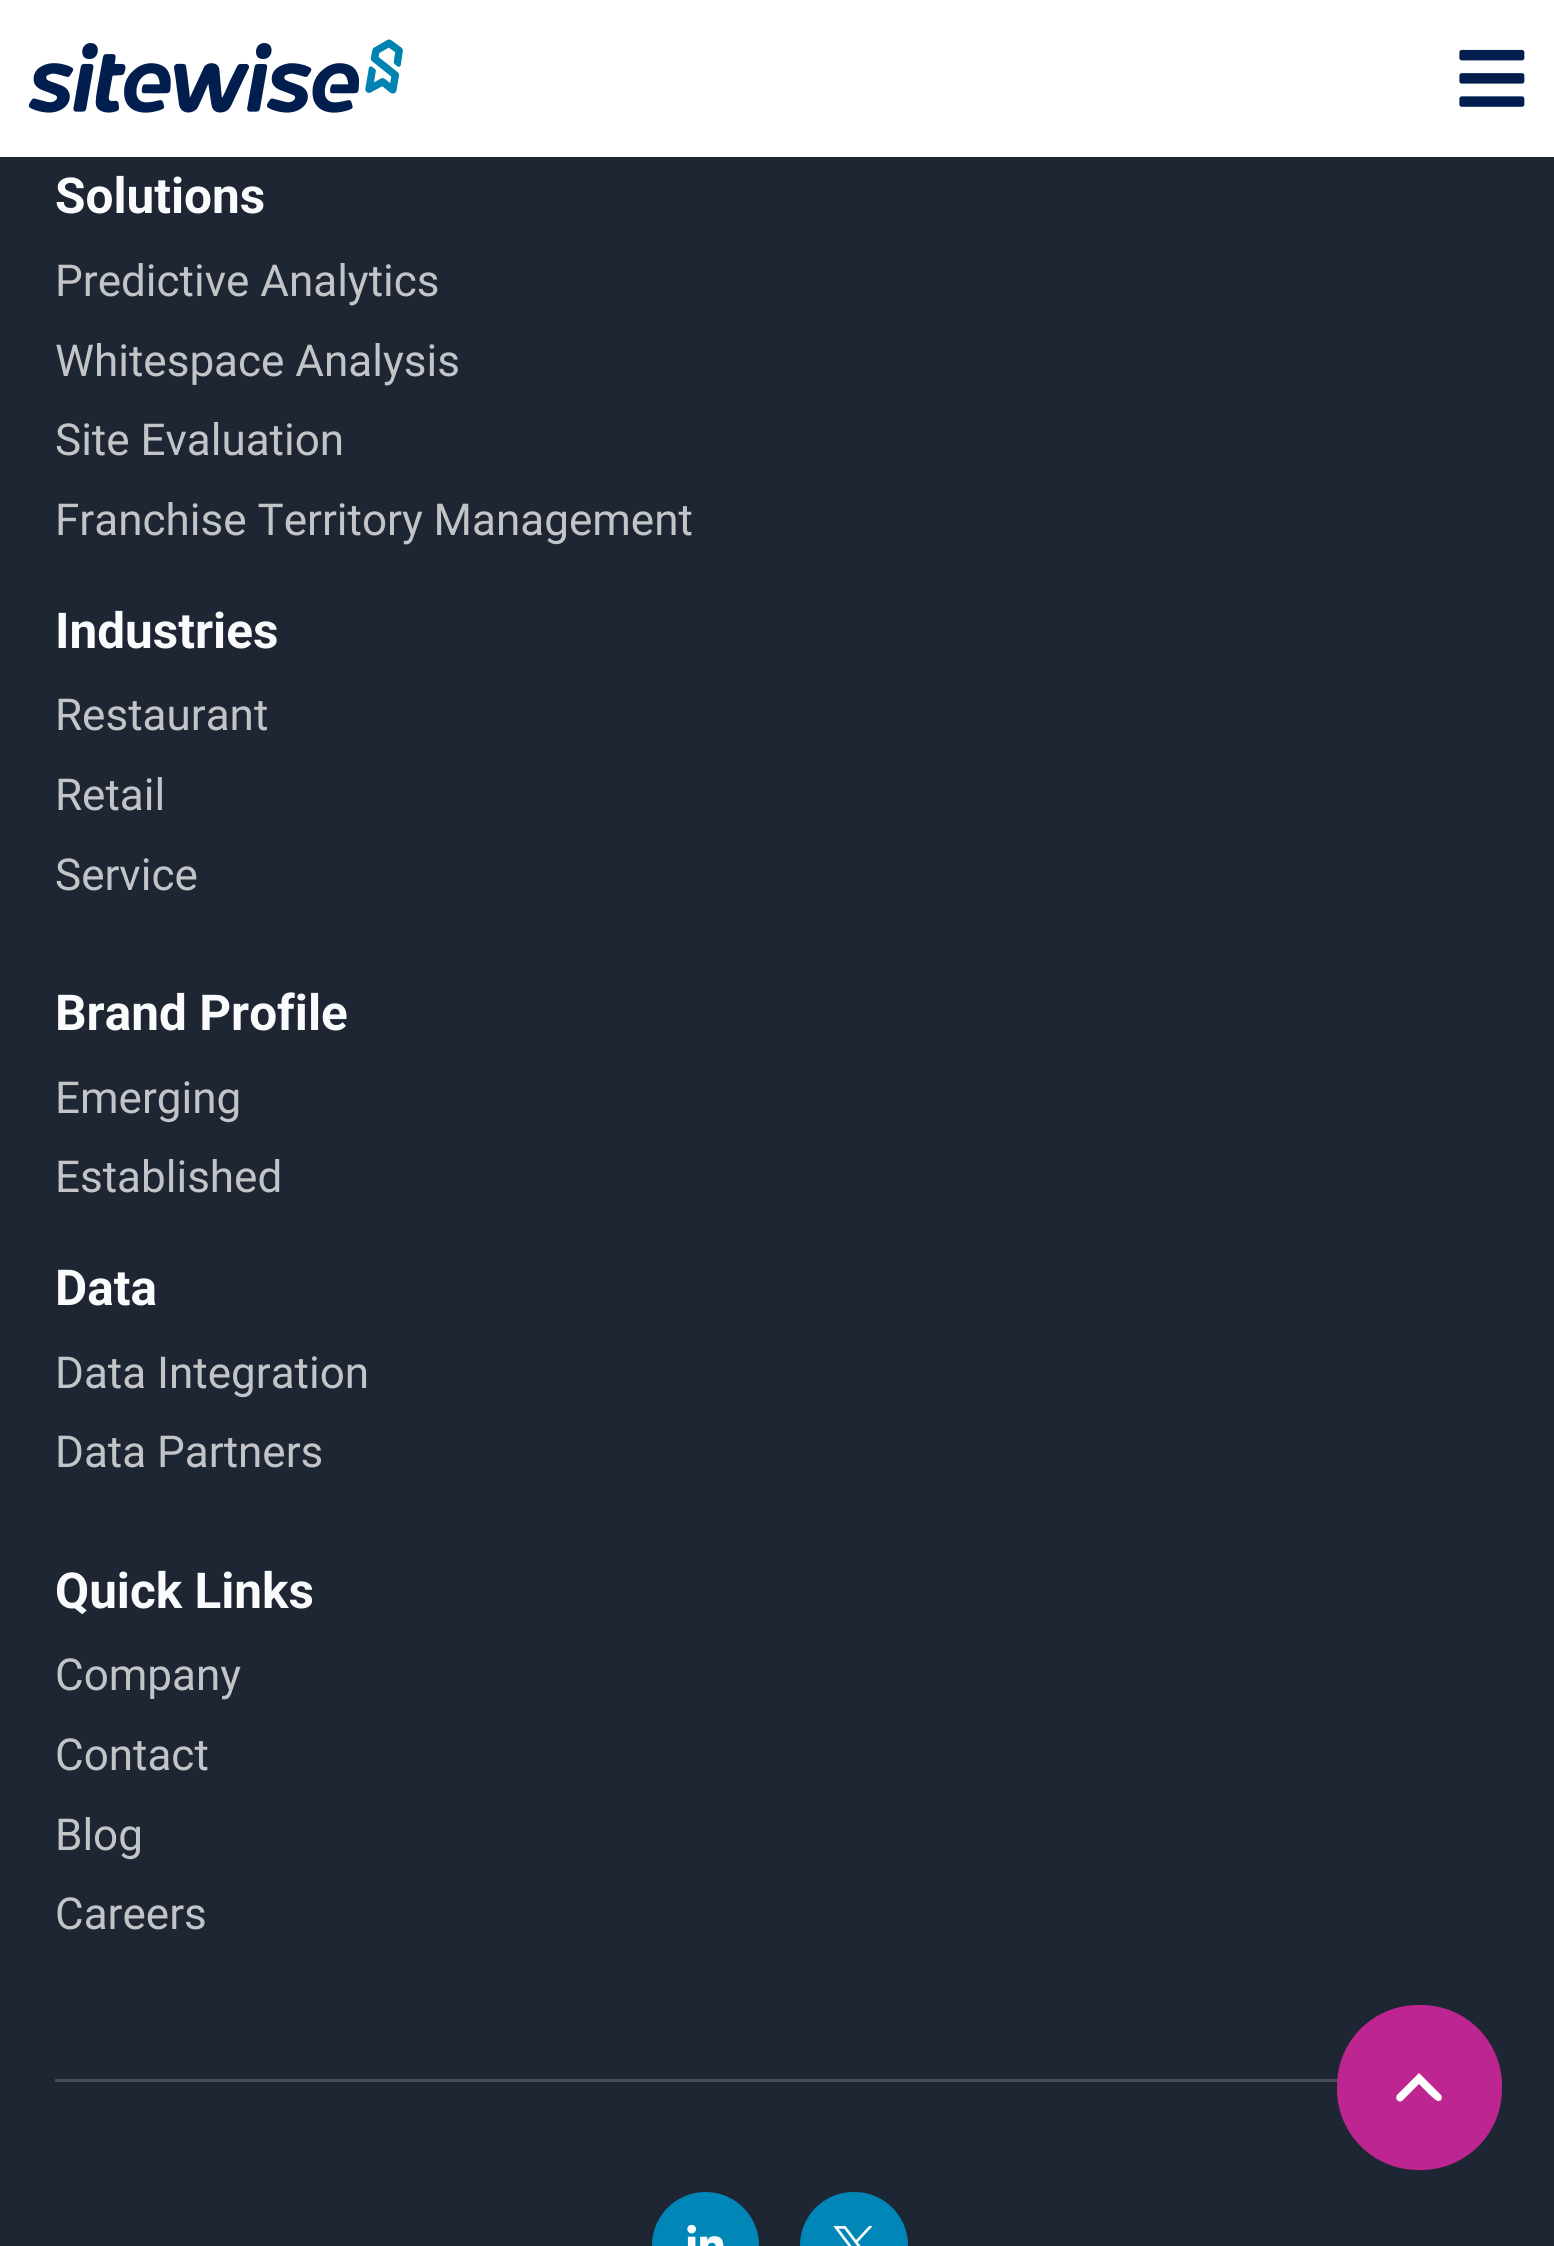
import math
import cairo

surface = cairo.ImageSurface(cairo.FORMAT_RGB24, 1554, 2246)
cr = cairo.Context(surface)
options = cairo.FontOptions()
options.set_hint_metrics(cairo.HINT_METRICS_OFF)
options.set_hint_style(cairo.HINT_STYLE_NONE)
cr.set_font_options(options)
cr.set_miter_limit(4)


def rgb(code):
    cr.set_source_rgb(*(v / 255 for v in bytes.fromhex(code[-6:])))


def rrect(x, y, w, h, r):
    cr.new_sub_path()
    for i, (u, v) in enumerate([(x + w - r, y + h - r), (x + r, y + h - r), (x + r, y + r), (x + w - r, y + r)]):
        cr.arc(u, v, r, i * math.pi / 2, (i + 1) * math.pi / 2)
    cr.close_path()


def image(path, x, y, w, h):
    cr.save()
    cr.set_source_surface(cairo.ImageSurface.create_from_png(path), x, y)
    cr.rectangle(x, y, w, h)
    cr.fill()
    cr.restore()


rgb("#1e2633")
cr.paint()
rgb("#ffffff")
cr.rectangle(0, 0, 1554, 157)
cr.fill()
image("img/1.png", 28, 39, 375, 74)
image("img/2.png", 1459, 49, 66, 58)
rgb("#474d58")
cr.rectangle(55, 2079, 1447, 3)
cr.fill()
rgb("#0087b7")
cr.arc(705.5, 2245.5, 53.5, 0, 2 * math.pi)
cr.fill()
image("img/3.png", 687, 2225, 37, 21)
rrect(800, 2192, 108, 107, 53.5)
cr.fill()
image("img/4.png", 833, 2226, 40, 20)
rgb("#bd2590")
rrect(1337, 2005, 165, 165, 81)
cr.fill()
rgb("#ffffff")
cr.new_path()
cr.move_to(1438, 2101)
cr.curve_to(1435, 2101, 1422, 2087, 1419, 2084)
cr.line_to(1403, 2100)
cr.curve_to(1401, 2102, 1399, 2102, 1397, 2100)
cr.curve_to(1396, 2099, 1396, 2096, 1397, 2095)
cr.line_to(1419, 2073)
cr.line_to(1441, 2095)
cr.curve_to(1442, 2096, 1442, 2099, 1441, 2100)
cr.curve_to(1440, 2101, 1439, 2101, 1438, 2101)
cr.close_path()
cr.fill()
cr.select_font_face("Roboto", cairo.FONT_SLANT_NORMAL, cairo.FONT_WEIGHT_BOLD)
cr.set_font_size(49.5)
rgb("#fafbfc")
cr.move_to(55, 213)
cr.show_text("Solutions")
cr.select_font_face("Roboto")
cr.set_font_size(44)
rgb("#c2c4c7")
for x, y, s in [
    (55, 296, "Predictive Analytics"),
    (55, 376, "Whitespace Analysis"),
    (55, 455, "Site Evaluation"),
    (55, 535, "Franchise Territory Management"),
]:
    cr.move_to(x, y)
    cr.show_text(s)
cr.select_font_face("Roboto", cairo.FONT_SLANT_NORMAL, cairo.FONT_WEIGHT_BOLD)
cr.set_font_size(49.5)
rgb("#fafbfc")
cr.move_to(55, 648)
cr.show_text("Industries")
cr.select_font_face("Roboto")
cr.set_font_size(44)
rgb("#c2c4c7")
for x, y, s in [
    (55, 730, "Restaurant"),
    (55, 810, "Retail"),
    (55, 890, "Service"),
]:
    cr.move_to(x, y)
    cr.show_text(s)
cr.select_font_face("Roboto", cairo.FONT_SLANT_NORMAL, cairo.FONT_WEIGHT_BOLD)
cr.set_font_size(49.5)
rgb("#fafbfc")
cr.move_to(55, 1030)
cr.show_text("Brand Profile")
cr.select_font_face("Roboto")
cr.set_font_size(44)
rgb("#c2c4c7")
cr.move_to(55, 1113)
cr.show_text("Emerging")
cr.move_to(55, 1192)
cr.show_text("Established")
cr.select_font_face("Roboto", cairo.FONT_SLANT_NORMAL, cairo.FONT_WEIGHT_BOLD)
cr.set_font_size(49.5)
rgb("#fafbfc")
cr.move_to(55, 1305)
cr.show_text("Data")
cr.select_font_face("Roboto")
cr.set_font_size(44)
rgb("#c2c4c7")
cr.move_to(55, 1388)
cr.show_text("Data Integration")
cr.move_to(55, 1467)
cr.show_text("Data Partners")
cr.select_font_face("Roboto", cairo.FONT_SLANT_NORMAL, cairo.FONT_WEIGHT_BOLD)
cr.set_font_size(49.5)
rgb("#fafbfc")
cr.move_to(55, 1608)
cr.show_text("Quick Links")
cr.select_font_face("Roboto")
cr.set_font_size(44)
rgb("#c2c4c7")
for x, y, s in [
    (55, 1690, "Company"),
    (55, 1770, "Contact"),
    (55, 1850, "Blog"),
    (55, 1929, "Careers"),
]:
    cr.move_to(x, y)
    cr.show_text(s)
surface.write_to_png("page.png")
